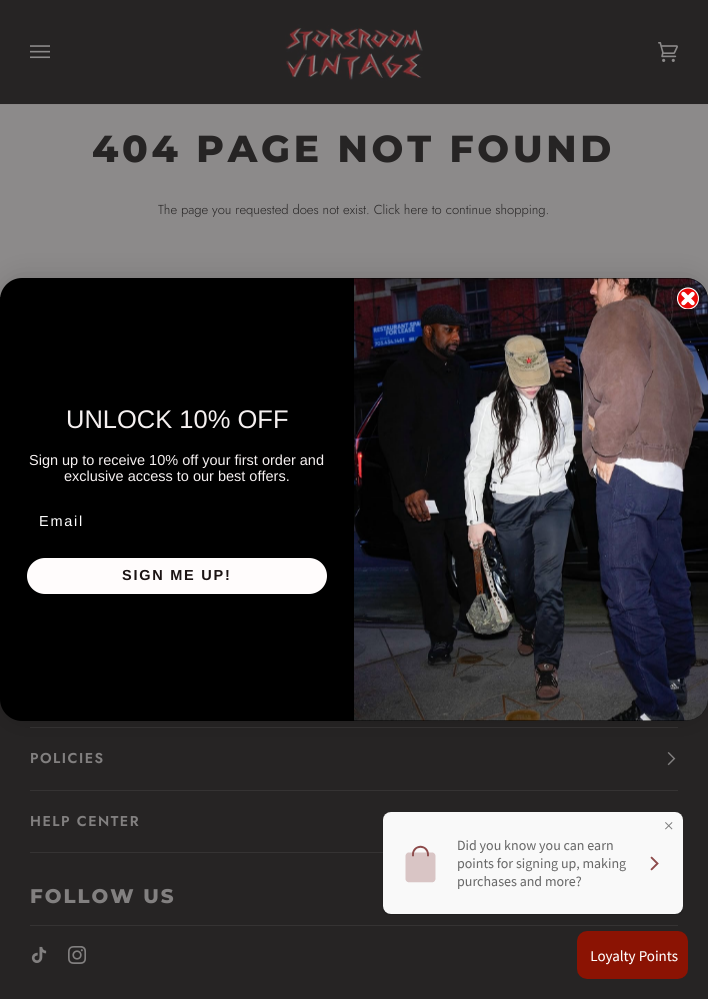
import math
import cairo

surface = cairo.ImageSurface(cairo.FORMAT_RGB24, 708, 999)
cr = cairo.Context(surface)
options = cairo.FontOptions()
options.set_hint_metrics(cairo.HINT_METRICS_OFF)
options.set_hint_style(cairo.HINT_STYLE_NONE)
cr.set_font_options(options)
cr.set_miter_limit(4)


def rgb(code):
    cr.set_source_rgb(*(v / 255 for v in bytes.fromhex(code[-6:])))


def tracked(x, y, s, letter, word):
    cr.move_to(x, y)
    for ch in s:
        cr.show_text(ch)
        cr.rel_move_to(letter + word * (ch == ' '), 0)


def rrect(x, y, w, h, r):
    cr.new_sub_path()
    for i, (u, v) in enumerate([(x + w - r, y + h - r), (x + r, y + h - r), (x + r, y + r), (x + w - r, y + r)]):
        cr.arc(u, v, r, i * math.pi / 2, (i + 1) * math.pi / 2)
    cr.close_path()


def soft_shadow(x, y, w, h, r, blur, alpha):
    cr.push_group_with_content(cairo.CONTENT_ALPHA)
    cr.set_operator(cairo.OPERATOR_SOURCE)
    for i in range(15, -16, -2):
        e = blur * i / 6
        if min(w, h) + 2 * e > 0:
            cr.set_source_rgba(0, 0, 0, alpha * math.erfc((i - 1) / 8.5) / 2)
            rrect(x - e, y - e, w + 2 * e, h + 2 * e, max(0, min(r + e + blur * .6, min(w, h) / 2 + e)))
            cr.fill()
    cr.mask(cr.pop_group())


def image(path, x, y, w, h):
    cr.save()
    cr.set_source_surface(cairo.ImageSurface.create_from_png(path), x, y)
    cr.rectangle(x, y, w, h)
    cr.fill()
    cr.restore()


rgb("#8c8a8a")
cr.paint()
rgb("#262424")
cr.rectangle(0, 0, 708, 104)
cr.fill()
rgb("#898686")
cr.rectangle(0, 104, 708, 1)
cr.fill()
image("img/1.png", 30, 45, 20, 14)
image("img/2.png", 285, 24, 138, 57)
image("img/3.png", 658, 42, 20, 20)
rgb("#262424")
cr.rectangle(0, 297, 708, 702)
cr.fill()
rgb("#353333")
cr.rectangle(30, 727, 648, 1)
cr.fill()
image("img/5.png", 667, 752, 9, 14)
rgb("#000000")
soft_shadow(0, 278, 708, 443, 22, 13.5, 0.15)
rgb("#000000")
rrect(0, 278, 708, 443, 22)
cr.fill()
image("img/4.png", 354, 278, 354, 443)
rgb("#ec0909")
cr.arc(688, 298.5, 10.5, 0, 2 * math.pi)
cr.fill()
cr.save()
cr.rectangle(677, 287, 22, 22)
cr.clip()
cr.arc(688, 298.5, 10.5, 0, 2 * math.pi)
rgb("#ffffff")
cr.set_line_width(1.1)
cr.stroke()
cr.restore()
cr.new_path()
cr.move_to(683.5, 294)
cr.line_to(692.5, 303)
cr.move_to(683.5, 303)
cr.line_to(692.5, 294)
cr.close_path()
rgb("#ffffff")
cr.set_line_width(4.4)
cr.set_line_cap(cairo.LINE_CAP_ROUND)
cr.set_line_join(cairo.LINE_JOIN_ROUND)
cr.stroke()
rgb("#fffcfc")
rrect(27, 558, 300, 36, 18)
cr.fill()
for x, y, w, h, color in [
    (30, 790, 648, 1, "#353333"),
    (30, 852, 353, 1, "#353333"),
    (30, 925, 648, 1, "#353333"),
]:
    rgb(color)
    cr.rectangle(x, y, w, h)
    cr.fill()
image("img/6.png", 31, 946, 16, 17)
image("img/7.png", 68, 946, 18, 18)
image("img/8.png", 382, 812, 301, 103)
image("img/9.png", 577, 931, 111, 48)
cr.select_font_face("Montserrat ExtraBold")
cr.set_font_size(37.6)
rgb("#262424")
tracked(92, 162, "404 PAGE NOT FOUND", 3.75, 0)
cr.select_font_face("Jost Light")
cr.set_font_size(13)
cr.move_to(158, 214)
cr.show_text("The page you requested does not exist. Click here to continue shopping.")
cr.select_font_face("Liberation Sans")
cr.set_font_size(25.5)
rgb("#f5f0f0")
cr.move_to(66, 428)
cr.show_text("UNLOCK 10% OFF")
cr.set_font_size(14.5)
cr.move_to(29, 465)
cr.show_text("Sign up to receive 10% off your first order and")
cr.move_to(64, 481)
cr.show_text("exclusive access to our best offers.")
rgb("#ffffff")
tracked(39, 526, "Email", 1.75, 0)
cr.select_font_face("Liberation Sans", cairo.FONT_SLANT_NORMAL, cairo.FONT_WEIGHT_BOLD)
rgb("#1b1313")
tracked(122, 580, "SIGN ME UP!", 1.75, 0)
cr.select_font_face("Jost SemiBold")
cr.set_font_size(14.25)
rgb("#828080")
tracked(30, 763, "POLICIES", 1.5, 0)
tracked(30, 826, "HELP CENTER", 1.5, 0)
cr.select_font_face("Montserrat ExtraBold")
cr.set_font_size(19.75)
tracked(30, 903, "FOLLOW US", 2, 0)
surface.write_to_png("page.png")
